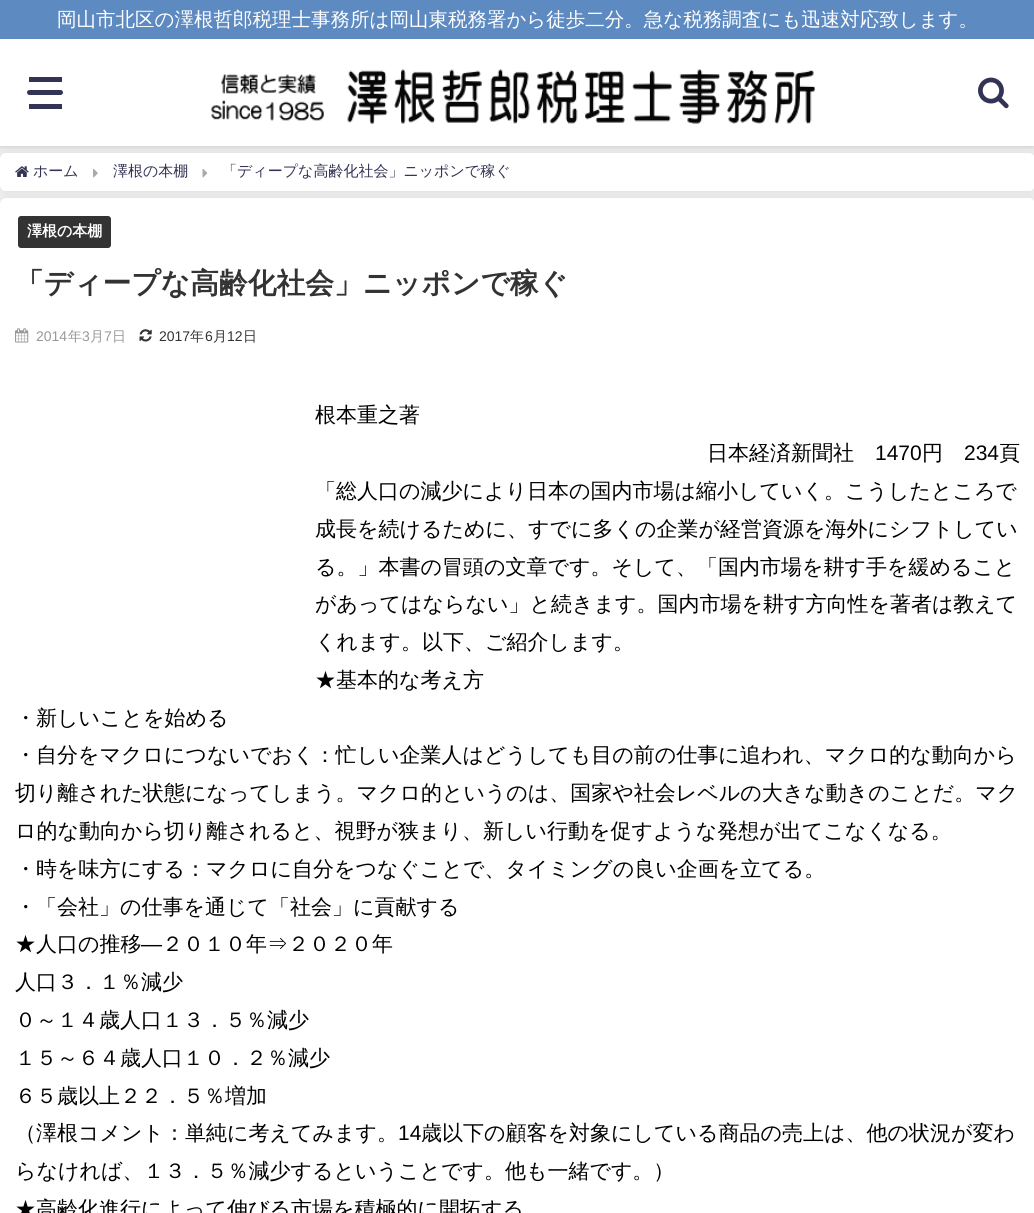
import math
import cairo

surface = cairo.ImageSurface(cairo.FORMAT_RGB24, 1034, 1213)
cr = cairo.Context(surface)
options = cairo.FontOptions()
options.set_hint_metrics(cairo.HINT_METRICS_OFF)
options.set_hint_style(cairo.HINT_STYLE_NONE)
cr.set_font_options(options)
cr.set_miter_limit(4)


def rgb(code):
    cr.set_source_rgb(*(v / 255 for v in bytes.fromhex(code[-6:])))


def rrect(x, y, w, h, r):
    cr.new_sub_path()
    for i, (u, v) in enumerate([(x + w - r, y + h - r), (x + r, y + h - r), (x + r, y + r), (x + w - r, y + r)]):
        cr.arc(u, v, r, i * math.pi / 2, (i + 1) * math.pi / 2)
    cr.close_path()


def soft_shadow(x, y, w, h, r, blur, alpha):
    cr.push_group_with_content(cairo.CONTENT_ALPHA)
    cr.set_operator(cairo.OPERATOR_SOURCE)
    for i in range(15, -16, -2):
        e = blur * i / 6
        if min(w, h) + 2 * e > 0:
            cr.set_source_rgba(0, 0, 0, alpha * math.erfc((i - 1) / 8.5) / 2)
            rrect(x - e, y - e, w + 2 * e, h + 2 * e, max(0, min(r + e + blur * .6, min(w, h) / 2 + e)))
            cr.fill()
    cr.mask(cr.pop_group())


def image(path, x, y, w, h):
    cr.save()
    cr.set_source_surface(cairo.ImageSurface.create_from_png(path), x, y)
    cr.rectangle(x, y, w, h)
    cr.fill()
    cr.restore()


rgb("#efefef")
cr.paint()
rgb("#969696")
soft_shadow(0, 153, 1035, 38, 6, 4, 0.2)
rgb("#ffffff")
rrect(0, 153, 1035, 38, 6)
cr.fill()
rgb("#000000")
soft_shadow(0, 0, 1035, 146, 0, 3, 0.2)
for x, y, w, h, color in [
    (0, 39, 1034, 107, "#ffffff"),
    (0, 0, 1034, 39, "#5d8ac1"),
    (29, 77, 33, 5, "#333355"),
]:
    rgb(color)
    cr.rectangle(x, y, w, h)
    cr.fill()
rrect(27, 90, 36, 5, 2.5)
cr.fill()
cr.rectangle(29, 104, 33, 5)
cr.fill()
image("img/1.png", 211, 69, 604, 55)
image("img/2.png", 978, 77, 31, 32)
image("img/3.png", 15, 166, 14, 11)
image("img/4.png", 93, 169, 5, 9)
image("img/5.png", 202, 169, 6, 9)
rgb("#969696")
soft_shadow(0, 198, 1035, 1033, 6, 4, 0.2)
rgb("#ffffff")
rrect(0, 198, 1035, 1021, 6)
cr.fill()
rgb("#333333")
rrect(18, 216, 93, 32, 3)
cr.fill()
image("img/6.png", 15, 328, 14, 15)
image("img/7.png", 139, 329, 13, 13)
cr.select_font_face("WenQuanYi Zen Hei Medium")
cr.set_font_size(19.5)
rgb("#ffffff")
cr.move_to(57, 26)
cr.show_text("岡山市北区の澤根哲郎税理士事務所は岡山東税務署から徒歩二分。急な税務調査にも迅速対応致します。")
cr.set_font_size(15)
rgb("#333355")
for x, y, s in [
    (33, 176, "ホーム"),
    (113, 176, "澤根の本棚"),
    (222, 176, "「ディープな高齢化社会」ニッポンで稼ぐ"),
]:
    cr.move_to(x, y)
    cr.show_text(s)
cr.select_font_face("WenQuanYi Zen Hei", cairo.FONT_SLANT_NORMAL, cairo.FONT_WEIGHT_BOLD)
rgb("#ffffff")
cr.move_to(27, 236)
cr.show_text("澤根の本棚")
cr.set_font_size(28.75)
rgb("#333333")
cr.move_to(15, 293)
cr.show_text("「ディープな高齢化社会」ニッポンで稼ぐ")
cr.select_font_face("Liberation Sans")
cr.set_font_size(14)
rgb("#999999")
cr.move_to(36, 341)
cr.show_text("2014")
cr.select_font_face("WenQuanYi Zen Hei Medium")
cr.move_to(68, 341)
cr.show_text("年")
cr.select_font_face("Liberation Sans")
cr.move_to(82, 341)
cr.show_text("3")
cr.select_font_face("WenQuanYi Zen Hei Medium")
cr.move_to(90, 341)
cr.show_text("月")
cr.select_font_face("Liberation Sans")
cr.move_to(104, 341)
cr.show_text("7")
cr.select_font_face("WenQuanYi Zen Hei Medium")
cr.move_to(112, 341)
cr.show_text("日")
cr.select_font_face("Liberation Sans")
rgb("#333333")
cr.move_to(159, 341)
cr.show_text("2017")
cr.select_font_face("WenQuanYi Zen Hei Medium")
cr.move_to(190, 341)
cr.show_text("年")
cr.select_font_face("Liberation Sans")
cr.move_to(205, 341)
cr.show_text("6")
cr.select_font_face("WenQuanYi Zen Hei Medium")
cr.move_to(213, 341)
cr.show_text("月")
cr.select_font_face("Liberation Sans")
cr.move_to(227, 341)
cr.show_text("12")
cr.select_font_face("WenQuanYi Zen Hei Medium")
cr.move_to(243, 341)
cr.show_text("日")
cr.set_font_size(21)
rgb("#000000")
cr.move_to(315, 422)
cr.show_text("根本重之著")
cr.move_to(707, 460)
cr.show_text("日本経済新聞社")
cr.select_font_face("Liberation Sans")
cr.move_to(875, 460)
cr.show_text("1470")
cr.select_font_face("WenQuanYi Zen Hei Medium")
cr.move_to(922, 460)
cr.show_text("円")
cr.select_font_face("Liberation Sans")
cr.move_to(964, 460)
cr.show_text("234")
cr.select_font_face("WenQuanYi Zen Hei Medium")
for x, y, s in [
    (999, 460, "頁"),
    (315, 498, "「総人口の減少により日本の国内市場は縮小していく。こうしたところで"),
    (315, 536, "成長を続けるために、すでに多くの企業が経営資源を海外にシフトしてい"),
    (315, 574, "る。」本書の冒頭の文章です。そして、「国内市場を耕す手を緩めること"),
    (315, 611, "があってはならない」と続きます。国内市場を耕す方向性を著者は教えて"),
    (315, 649, "くれます。以下、ご紹介します。"),
    (315, 687, "★基本的な考え方"),
    (15, 725, "・新しいことを始める"),
    (15, 762, "・自分をマクロにつないでおく：忙しい企業人はどうしても目の前の仕事に追われ、マクロ的な動向から"),
    (15, 800, "切り離された状態になってしまう。マクロ的というのは、国家や社会レベルの大きな動きのことだ。マク"),
    (15, 838, "ロ的な動向から切り離されると、視野が狭まり、新しい行動を促すような発想が出てこなくなる。"),
    (15, 876, "・時を味方にする：マクロに自分をつなぐことで、タイミングの良い企画を立てる。"),
    (15, 914, "・「会社」の仕事を通じて「社会」に貢献する"),
    (15, 951, "★人口の推移"),
]:
    cr.move_to(x, y)
    cr.show_text(s)
cr.select_font_face("Liberation Sans")
cr.move_to(141, 951)
cr.show_text("―")
cr.select_font_face("WenQuanYi Zen Hei Medium")
for x, y, s in [
    (162, 951, "２０１０年⇒２０２０年"),
    (15, 989, "人口３．１％減少"),
    (15, 1027, "０～１４歳人口１３．５％減少"),
    (15, 1065, "１５～６４歳人口１０．２％減少"),
    (15, 1103, "６５歳以上２２．５％増加"),
    (15, 1140, "（澤根コメント：単純に考えてみます。"),
]:
    cr.move_to(x, y)
    cr.show_text(s)
cr.select_font_face("Liberation Sans")
cr.move_to(398, 1140)
cr.show_text("14")
cr.select_font_face("WenQuanYi Zen Hei Medium")
for x, y, s in [
    (421, 1140, "歳以下の顧客を対象にしている商品の売上は、他の状況が変わ"),
    (15, 1178, "らなければ、１３．５％減少するということです。他も一緒です。）"),
    (15, 1216, "★高齢化進行によって伸びる市場を積極的に開拓する"),
]:
    cr.move_to(x, y)
    cr.show_text(s)
surface.write_to_png("page.png")
